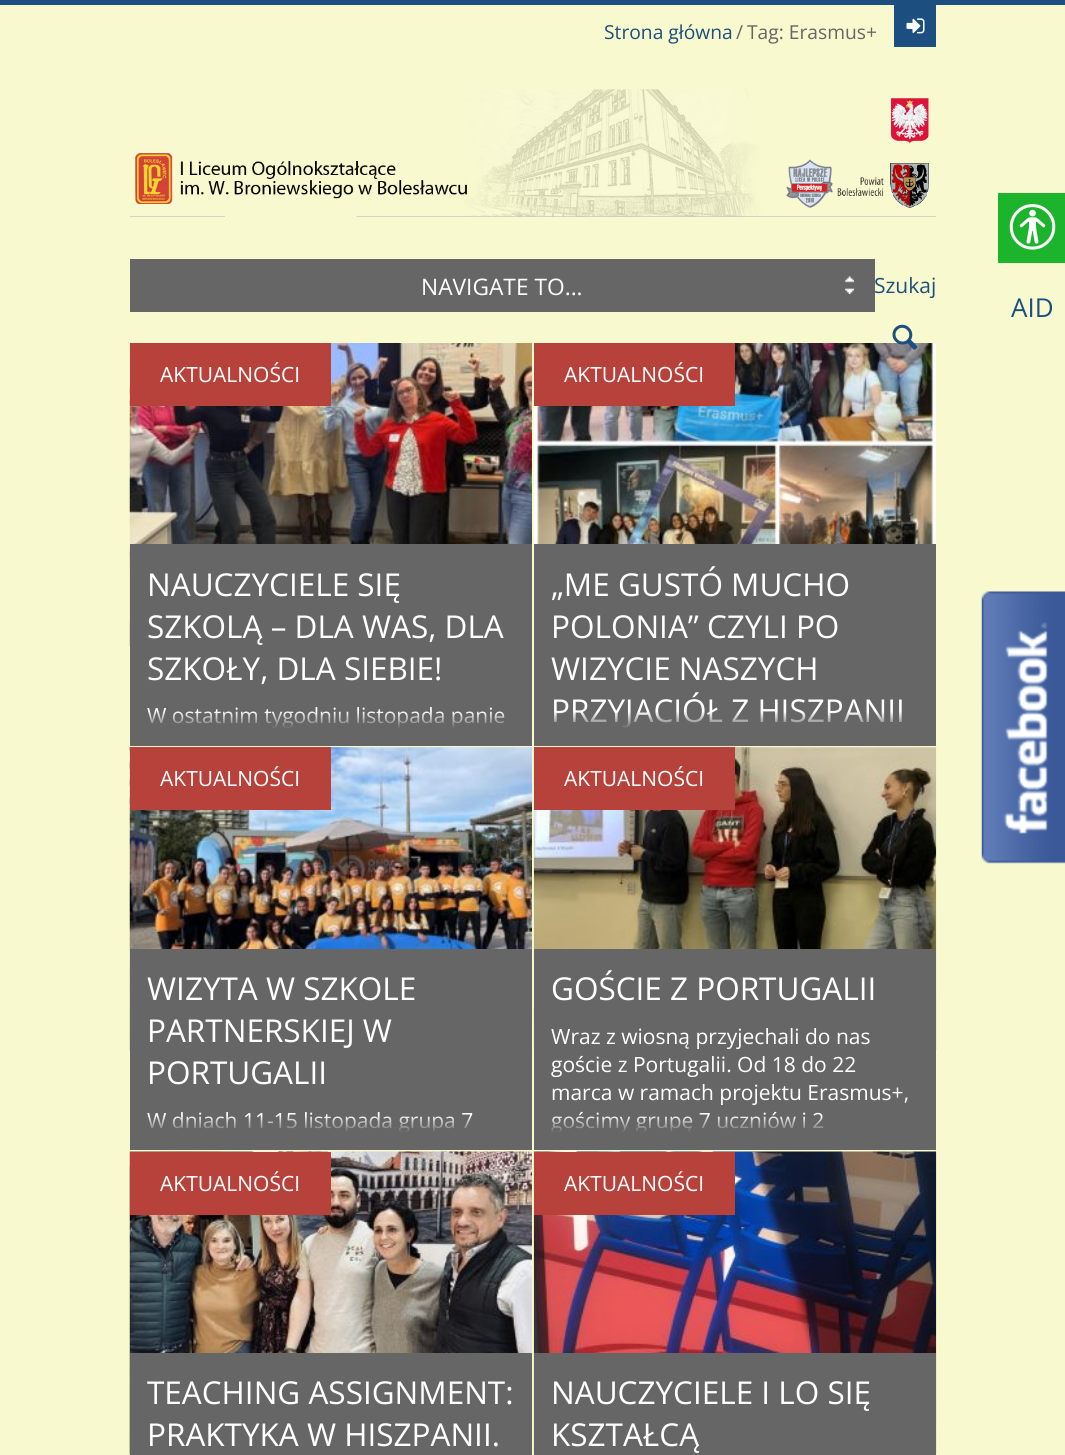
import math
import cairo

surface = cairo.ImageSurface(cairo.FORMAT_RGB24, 1065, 1455)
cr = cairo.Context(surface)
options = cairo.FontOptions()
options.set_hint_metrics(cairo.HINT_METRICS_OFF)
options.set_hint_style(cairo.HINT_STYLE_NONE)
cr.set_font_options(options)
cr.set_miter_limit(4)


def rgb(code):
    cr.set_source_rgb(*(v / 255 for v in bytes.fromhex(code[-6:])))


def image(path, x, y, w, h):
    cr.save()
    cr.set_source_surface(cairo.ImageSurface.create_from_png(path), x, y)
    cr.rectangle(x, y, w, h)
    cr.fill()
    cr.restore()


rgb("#f9f9cf")
cr.paint()
rgb("#1c4f7f")
cr.rectangle(0, 0, 1065, 5)
cr.fill()
cr.rectangle(894, 5, 42, 42)
cr.fill()
image("img/1.png", 906, 18, 19, 16)
image("img/2.png", 129, 89, 807, 128)
rgb("#666666")
cr.rectangle(130, 259, 745, 53)
cr.fill()
image("img/3.png", 845, 276, 9, 18)
image("img/6.png", 534, 343, 402, 201)
image("img/4.png", 892, 324, 26, 26)
image("img/5.png", 129, 343, 403, 303)
for x, y, w, h, color in [
    (130, 343, 201, 63, "#b7423b"),
    (130, 544, 402, 184, "#666666"),
    (534, 343, 201, 63, "#b7423b"),
    (534, 544, 402, 184, "#666666"),
]:
    rgb(color)
    cr.rectangle(x, y, w, h)
    cr.fill()
image("img/7.png", 129, 747, 403, 303)
rgb("#b7423b")
cr.rectangle(130, 747, 201, 63)
cr.fill()
rgb("#666666")
cr.rectangle(130, 949, 402, 183)
cr.fill()
image("img/8.png", 533, 747, 404, 303)
rgb("#b7423b")
cr.rectangle(534, 747, 201, 63)
cr.fill()
rgb("#666666")
cr.rectangle(534, 949, 402, 183)
cr.fill()
image("img/9.png", 129, 1151, 403, 304)
rgb("#b7423b")
cr.rectangle(130, 1152, 201, 63)
cr.fill()
rgb("#666666")
cr.rectangle(130, 1353, 402, 102)
cr.fill()
image("img/10.png", 533, 1151, 404, 303)
for x, y, w, h, color in [
    (534, 1152, 201, 63, "#b7423b"),
    (534, 1353, 402, 102, "#666666"),
    (998, 193, 67, 70, "#1cb42c"),
]:
    rgb(color)
    cr.rectangle(x, y, w, h)
    cr.fill()
image("img/11.png", 1009, 204, 47, 46)
image("img/12.png", 981, 591, 84, 273)
cr.select_font_face("Open Sans")
cr.set_font_size(19.25)
rgb("#1c4f7f")
cr.move_to(604, 39)
cr.show_text("Strona główna")
rgb("#666666")
cr.move_to(736, 39)
cr.show_text("/")
cr.move_to(747, 39)
cr.show_text("Tag: Erasmus+")
cr.set_font_size(22.75)
rgb("#ffffff")
cr.move_to(421, 295)
cr.show_text("NAVIGATE TO...")
cr.set_font_size(21)
rgb("#1c4f7f")
cr.move_to(874, 293)
cr.show_text("Szukaj")
rgb("#ffffff")
cr.move_to(160, 382)
cr.show_text("AKTUALNOŚCI")
cr.set_font_size(31.5)
for x, y, s in [
    (147, 596, "NAUCZYCIELE SIĘ"),
    (147, 638, "SZKOLĄ – DLA WAS, DLA"),
    (147, 680, "SZKOŁY, DLA SIEBIE!"),
]:
    cr.move_to(x, y)
    cr.show_text(s)
cr.set_font_size(21)
cr.move_to(147, 723)
cr.show_text("W ostatnim tygodniu listopada panie")
gradient = cairo.LinearGradient(331, 711, 331, 746)
gradient.add_color_stop_rgba(0, 0.4, 0.4, 0.4, 0)
gradient.add_color_stop_rgba(0.01, 0.4, 0.4, 0.4, 0.01)
gradient.add_color_stop_rgba(0.5, 0.4, 0.4, 0.4, 1)
cr.set_source(gradient)
cr.rectangle(130, 712, 402, 34)
cr.fill()
rgb("#ffffff")
cr.move_to(564, 382)
cr.show_text("AKTUALNOŚCI")
cr.set_font_size(31.5)
for x, y, s in [
    (551, 596, "„ME GUSTÓ MUCHO"),
    (551, 638, "POLONIA” CZYLI PO"),
    (551, 680, "WIZYCIE NASZYCH"),
    (551, 722, "PRZYJACIÓŁ Z HISZPANII"),
]:
    cr.move_to(x, y)
    cr.show_text(s)
gradient = cairo.LinearGradient(735, 711, 735, 746)
gradient.add_color_stop_rgba(0, 0.4, 0.4, 0.4, 0)
gradient.add_color_stop_rgba(0.01, 0.4, 0.4, 0.4, 0.01)
gradient.add_color_stop_rgba(0.5, 0.4, 0.4, 0.4, 1)
cr.set_source(gradient)
cr.rectangle(534, 712, 402, 34)
cr.fill()
cr.set_font_size(21)
rgb("#ffffff")
cr.move_to(160, 786)
cr.show_text("AKTUALNOŚCI")
cr.set_font_size(31.5)
for x, y, s in [
    (147, 1000, "WIZYTA W SZKOLE"),
    (147, 1042, "PARTNERSKIEJ W"),
    (147, 1084, "PORTUGALII"),
]:
    cr.move_to(x, y)
    cr.show_text(s)
cr.set_font_size(21)
cr.move_to(147, 1128)
cr.show_text("W dniach 11-15 listopada grupa 7")
gradient = cairo.LinearGradient(331, 1115, 331, 1150)
gradient.add_color_stop_rgba(0, 0.4, 0.4, 0.4, 0)
gradient.add_color_stop_rgba(0.01, 0.4, 0.4, 0.4, 0.01)
gradient.add_color_stop_rgba(0.5, 0.4, 0.4, 0.4, 1)
cr.set_source(gradient)
cr.rectangle(130, 1116, 402, 34)
cr.fill()
rgb("#ffffff")
cr.move_to(564, 786)
cr.show_text("AKTUALNOŚCI")
cr.set_font_size(31.5)
cr.move_to(551, 1000)
cr.show_text("GOŚCIE Z PORTUGALII")
cr.set_font_size(21)
for x, y, s in [
    (551, 1044, "Wraz z wiosną przyjechali do nas"),
    (551, 1072, "goście z Portugalii. Od 18 do 22"),
    (551, 1100, "marca w ramach projektu Erasmus+,"),
    (551, 1128, "gościmy grupę 7 uczniów i 2"),
]:
    cr.move_to(x, y)
    cr.show_text(s)
gradient = cairo.LinearGradient(735, 1115, 735, 1150)
gradient.add_color_stop_rgba(0, 0.4, 0.4, 0.4, 0)
gradient.add_color_stop_rgba(0.01, 0.4, 0.4, 0.4, 0.01)
gradient.add_color_stop_rgba(0.5, 0.4, 0.4, 0.4, 1)
cr.set_source(gradient)
cr.rectangle(534, 1116, 402, 34)
cr.fill()
rgb("#ffffff")
cr.move_to(160, 1191)
cr.show_text("AKTUALNOŚCI")
cr.set_font_size(31.5)
cr.move_to(147, 1404)
cr.show_text("TEACHING ASSIGNMENT:")
cr.move_to(147, 1446)
cr.show_text("PRAKTYKA W HISZPANII.")
cr.set_font_size(21)
cr.move_to(564, 1191)
cr.show_text("AKTUALNOŚCI")
cr.set_font_size(31.5)
cr.move_to(551, 1404)
cr.show_text("NAUCZYCIELE I LO SIĘ")
cr.move_to(551, 1446)
cr.show_text("KSZTAŁCĄ")
cr.set_font_size(26)
rgb("#1c4f7f")
cr.move_to(1011, 317)
cr.show_text("AID")
surface.write_to_png("page.png")
